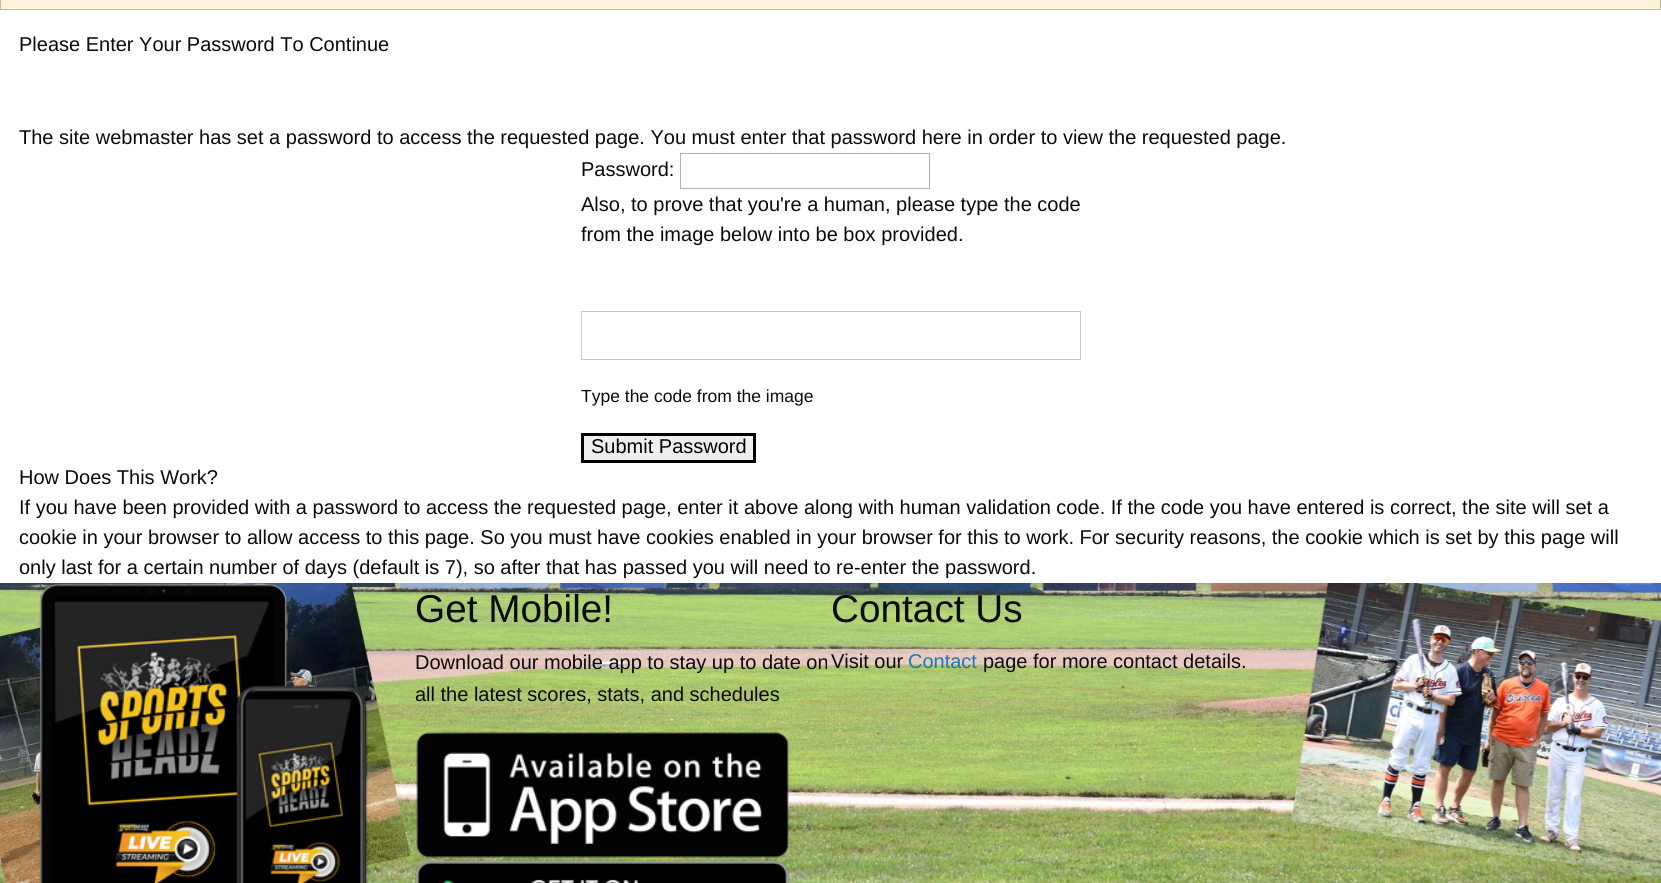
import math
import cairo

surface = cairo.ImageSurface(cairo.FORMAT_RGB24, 1661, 883)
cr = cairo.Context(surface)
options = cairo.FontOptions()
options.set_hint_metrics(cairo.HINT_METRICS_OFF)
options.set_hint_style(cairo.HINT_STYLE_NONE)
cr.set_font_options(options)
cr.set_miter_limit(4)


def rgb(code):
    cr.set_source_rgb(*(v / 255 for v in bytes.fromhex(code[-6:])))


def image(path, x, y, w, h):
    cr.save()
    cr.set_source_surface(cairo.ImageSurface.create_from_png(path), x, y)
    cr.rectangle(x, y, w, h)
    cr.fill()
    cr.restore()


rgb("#ffffff")
cr.paint()
image("img/1.png", 0, 583, 1661, 300)
rgb("#fff3d9")
cr.rectangle(0.5, -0.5, 1660, 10)
cr.fill_preserve()
rgb("#c2b9a5")
cr.set_line_width(1)
cr.stroke()
cr.rectangle(680.5, 153.5, 249, 35)
rgb("#b3b3b3")
cr.stroke()
cr.rectangle(581.5, 311.5, 499, 48)
rgb("#cacaca")
cr.stroke()
rgb("#efefef")
cr.rectangle(582.5, 434.5, 172, 27)
cr.fill_preserve()
rgb("#000000")
cr.set_line_width(3)
cr.stroke()
image("img/2.png", 39, 582, 329, 301)
image("img/3.png", 416, 732, 373, 126)
image("img/4.png", 415, 860, 374, 23)
cr.select_font_face("Liberation Sans")
cr.set_font_size(20)
rgb("#0a0a0a")
for x, y, s in [
    (19, 51, "Please Enter Your Password To Continue"),
    (19, 144, "The site webmaster has set a password to access the requested page. You must enter that password here in order to view the requested page."),
    (581, 176, "Password:"),
    (581, 211, "Also, to prove that you're a human, please type the code"),
    (581, 241, "from the image below into be box provided."),
]:
    cr.move_to(x, y)
    cr.show_text(s)
cr.set_font_size(17.5)
cr.move_to(581, 402)
cr.show_text("Type the code from the image")
cr.set_font_size(20)
rgb("#000000")
cr.move_to(591, 453)
cr.show_text("Submit Password")
rgb("#0a0a0a")
for x, y, s in [
    (19, 484, "How Does This Work?"),
    (19, 514, "If you have been provided with a password to access the requested page, enter it above along with human validation code. If the code you have entered is correct, the site will set a"),
    (19, 544, "cookie in your browser to allow access to this page. So you must have cookies enabled in your browser for this to work. For security reasons, the cookie which is set by this page will"),
    (19, 574, "only last for a certain number of days (default is 7), so after that has passed you will need to re-enter the password."),
]:
    cr.move_to(x, y)
    cr.show_text(s)
cr.set_font_size(38.75)
cr.move_to(415, 622)
cr.show_text("Get Mobile!")
cr.set_font_size(20)
cr.move_to(415, 669)
cr.show_text("Download our mobile app to stay up to date on")
cr.move_to(415, 701)
cr.show_text("all the latest scores, stats, and schedules")
cr.set_font_size(38.75)
cr.move_to(831, 622)
cr.show_text("Contact Us")
cr.set_font_size(20)
cr.move_to(831, 668)
cr.show_text("Visit our")
rgb("#1779ba")
cr.move_to(908, 668)
cr.show_text("Contact")
rgb("#0a0a0a")
cr.move_to(983, 668)
cr.show_text("page for more contact details.")
surface.write_to_png("page.png")
